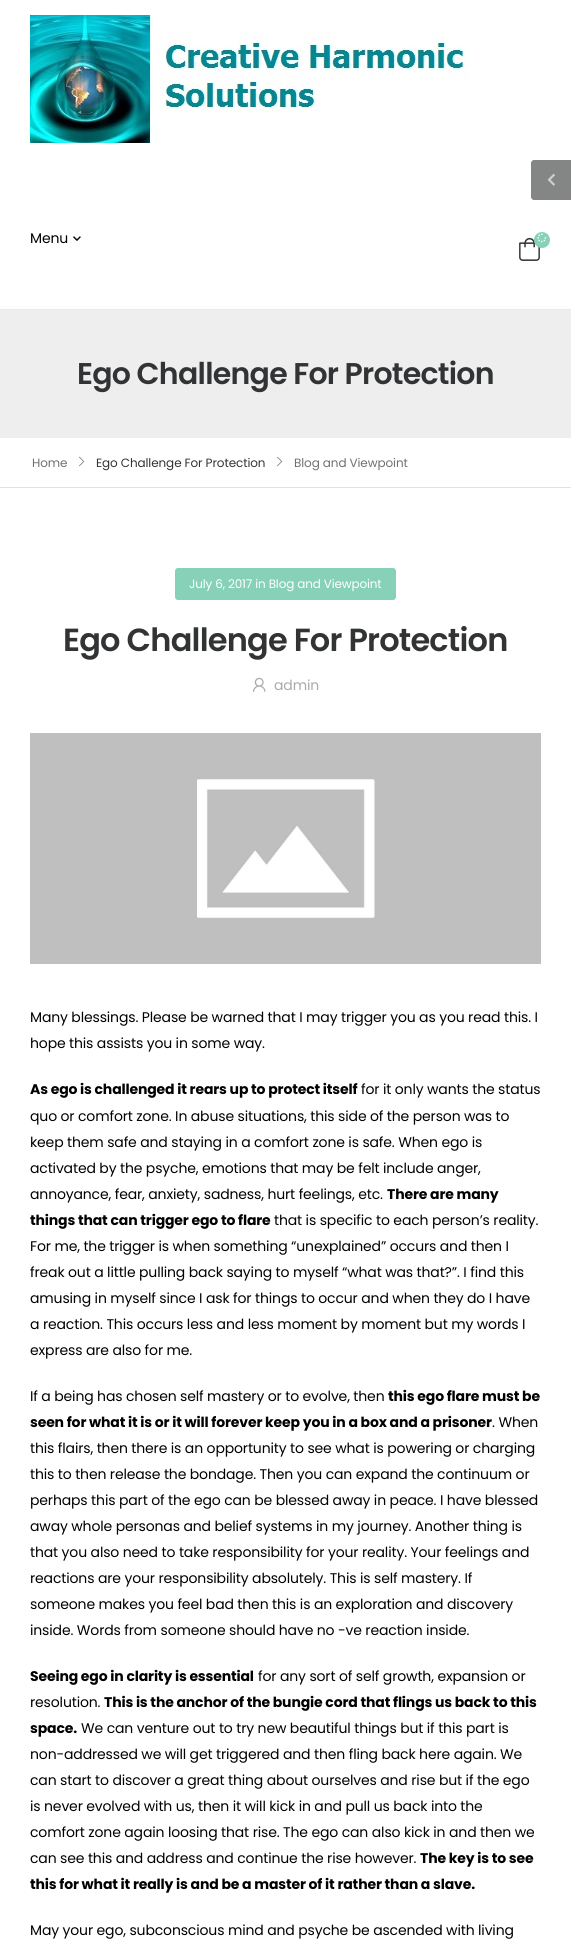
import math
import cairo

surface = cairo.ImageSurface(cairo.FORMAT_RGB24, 571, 1951)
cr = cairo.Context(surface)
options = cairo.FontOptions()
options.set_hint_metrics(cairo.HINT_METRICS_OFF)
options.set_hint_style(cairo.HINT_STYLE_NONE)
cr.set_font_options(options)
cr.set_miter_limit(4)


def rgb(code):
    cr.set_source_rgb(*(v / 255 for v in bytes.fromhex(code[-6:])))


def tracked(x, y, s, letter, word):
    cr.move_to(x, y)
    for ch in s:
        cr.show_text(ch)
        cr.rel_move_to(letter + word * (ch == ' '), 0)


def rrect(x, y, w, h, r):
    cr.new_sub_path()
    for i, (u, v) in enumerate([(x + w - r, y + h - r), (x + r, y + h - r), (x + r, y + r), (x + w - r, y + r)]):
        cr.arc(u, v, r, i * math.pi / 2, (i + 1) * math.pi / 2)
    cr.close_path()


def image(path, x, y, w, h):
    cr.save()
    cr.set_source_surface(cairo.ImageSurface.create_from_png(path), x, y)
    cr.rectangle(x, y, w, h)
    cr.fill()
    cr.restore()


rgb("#ffffff")
cr.paint()
image("img/1.png", 30, 15, 440, 128)
rgb("#ebebeb")
cr.rectangle(0, 309, 571, 1)
cr.fill()
image("img/2.png", 73, 236, 8, 5)
image("img/3.png", 519, 237, 21, 24)
rgb("#86d1b7")
cr.arc(542, 240, 8, 0, 2 * math.pi)
cr.fill()
image("img/4.png", 537, 233, 10, 10)
rgb("#eeeeee")
cr.rectangle(0, 310, 571, 128)
cr.fill()
rgb("#e1e1e1")
cr.rectangle(0, 487, 571, 1)
cr.fill()
image("img/5.png", 79, 456, 6, 11)
image("img/5.png", 277, 456, 6, 11)
rgb("#848585")
cr.new_path()
cr.move_to(534, 160)
cr.line_to(571, 160)
cr.line_to(571, 200)
cr.line_to(534, 200)
cr.curve_to(532.5, 200, 531, 198.5, 531, 197)
cr.line_to(531, 163)
cr.curve_to(531, 161.5, 532.5, 160, 534, 160)
cr.close_path()
cr.fill()
image("img/6.png", 547, 173, 8, 13)
rgb("#86d1b7")
rrect(175, 568, 221, 32, 3)
cr.fill()
image("img/7.png", 252, 677, 14, 15)
image("img/8.png", 30, 733, 511, 231)
cr.select_font_face("Poppins")
cr.set_font_size(14)
rgb("#000000")
tracked(30, 243, "Menu", -0.15, 0)
cr.select_font_face("Poppins SemiBold")
cr.set_font_size(30)
rgb("#323334")
tracked(77, 384, "Ego Challenge For Protection", -0.75, 0)
cr.select_font_face("Poppins")
cr.set_font_size(12)
rgb("#707071")
tracked(32, 467, "Home", -0.1, 0)
rgb("#323334")
tracked(96, 467, "Ego Challenge For Protection", -0.1, 0)
rgb("#707071")
tracked(294, 467, "Blog and Viewpoint", -0.1, 0)
rgb("#ffffff")
tracked(189, 588, "July 6, 2017 in Blog and Viewpoint", -0.15, 0)
cr.select_font_face("Poppins SemiBold")
cr.set_font_size(32)
rgb("#323334")
tracked(63, 651, "Ego Challenge For Protection", -0.8, 0)
cr.select_font_face("Poppins")
cr.set_font_size(14)
rgb("#aaaaaa")
tracked(274, 690, "admin", -0.15, 0)
rgb("#000000")
tracked(30, 1022, "Many blessings. Please be warned that I may trigger you as you read this. I", -0.15, 0)
tracked(30, 1048, "hope this assists you in some way.", -0.15, 0)
cr.select_font_face("Poppins", cairo.FONT_SLANT_NORMAL, cairo.FONT_WEIGHT_BOLD)
tracked(30, 1094, "As ego is challenged it rears up to protect itself", -0.15, 0)
cr.select_font_face("Poppins")
for x, y, s in [
    (361, 1094, "for it only wants the status"),
    (30, 1121, "quo or comfort zone. In abuse situations, this side of the person was to"),
    (30, 1147, "keep them safe and staying in a comfort zone is safe. When ego is"),
    (30, 1173, "activated by the psyche, emotions that may be felt include anger,"),
    (30, 1199, "annoyance, fear, anxiety, sadness, hurt feelings, etc."),
]:
    tracked(x, y, s, -0.15, 0)
cr.select_font_face("Poppins", cairo.FONT_SLANT_NORMAL, cairo.FONT_WEIGHT_BOLD)
tracked(387, 1199, "There are many", -0.15, 0)
tracked(30, 1225, "things that can trigger ego to flare", -0.15, 0)
cr.select_font_face("Poppins")
for x, y, s in [
    (274, 1225, "that is specific to each person’s reality."),
    (30, 1251, "For me, the trigger is when something “unexplained” occurs and then I"),
    (30, 1277, "freak out a little pulling back saying to myself “what was that?”. I find this"),
    (30, 1303, "amusing in myself since I ask for things to occur and when they do I have"),
    (30, 1329, "a reaction. This occurs less and less moment by moment but my words I"),
    (30, 1355, "express are also for me."),
    (30, 1401, "If a being has chosen self mastery or to evolve, then"),
]:
    tracked(x, y, s, -0.15, 0)
cr.select_font_face("Poppins", cairo.FONT_SLANT_NORMAL, cairo.FONT_WEIGHT_BOLD)
tracked(388, 1401, "this ego flare must be", -0.15, 0)
tracked(30, 1427, "seen for what it is or it will forever keep you in a box and a prisoner", -0.15, 0)
cr.select_font_face("Poppins")
for x, y, s in [
    (492, 1427, ". When"),
    (30, 1453, "this flairs, then there is an opportunity to see what is powering or charging"),
    (30, 1479, "this to then release the bondage. Then you can expand the continuum or"),
    (30, 1505, "perhaps this part of the ego can be blessed away in peace. I have blessed"),
    (30, 1531, "away whole personas and belief systems in my journey. Another thing is"),
    (30, 1557, "that you also need to take responsibility for your reality. Your feelings and"),
    (30, 1583, "reactions are your responsibility absolutely. This is self mastery. If"),
    (30, 1609, "someone makes you feel bad then this is an exploration and discovery"),
    (30, 1635, "inside. Words from someone should have no -ve reaction inside."),
]:
    tracked(x, y, s, -0.15, 0)
cr.select_font_face("Poppins", cairo.FONT_SLANT_NORMAL, cairo.FONT_WEIGHT_BOLD)
tracked(30, 1681, "Seeing ego in clarity is essential", -0.15, 0)
cr.select_font_face("Poppins")
tracked(258, 1681, "for any sort of self growth, expansion or", -0.15, 0)
tracked(30, 1707, "resolution.", -0.15, 0)
cr.select_font_face("Poppins", cairo.FONT_SLANT_NORMAL, cairo.FONT_WEIGHT_BOLD)
tracked(104, 1707, "This is the anchor of the bungie cord that flings us back to this", -0.15, 0)
tracked(30, 1733, "space.", -0.15, 0)
cr.select_font_face("Poppins")
for x, y, s in [
    (81, 1733, "We can venture out to try new beautiful things but if this part is"),
    (30, 1759, "non-addressed we will get triggered and then fling back here again. We"),
    (30, 1785, "can start to discover a great thing about ourselves and rise but if the ego"),
    (30, 1811, "is never evolved with us, then it will kick in and pull us back into the"),
    (30, 1837, "comfort zone again loosing that rise. The ego can also kick in and then we"),
    (30, 1863, "can see this and address and continue the rise however."),
]:
    tracked(x, y, s, -0.15, 0)
cr.select_font_face("Poppins", cairo.FONT_SLANT_NORMAL, cairo.FONT_WEIGHT_BOLD)
tracked(420, 1863, "The key is to see", -0.15, 0)
tracked(30, 1889, "this for what it really is and be a master of it rather than a slave.", -0.15, 0)
cr.select_font_face("Poppins")
tracked(30, 1935, "May your ego, subconscious mind and psyche be ascended with living", -0.15, 0)
surface.write_to_png("page.png")
